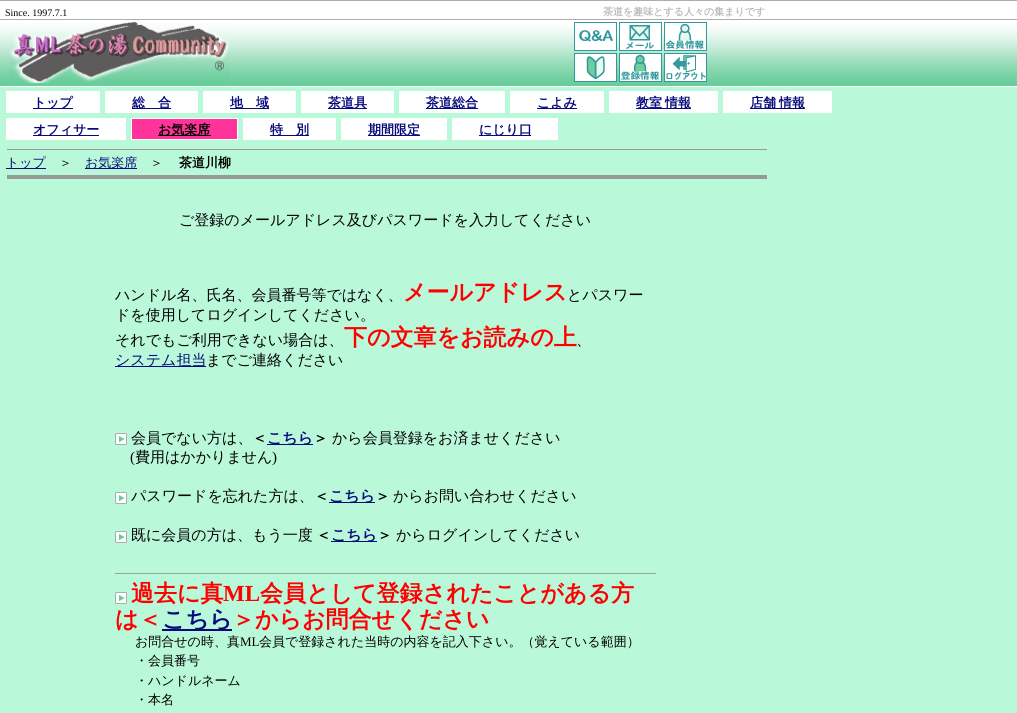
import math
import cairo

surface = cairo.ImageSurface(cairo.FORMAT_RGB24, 1017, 713)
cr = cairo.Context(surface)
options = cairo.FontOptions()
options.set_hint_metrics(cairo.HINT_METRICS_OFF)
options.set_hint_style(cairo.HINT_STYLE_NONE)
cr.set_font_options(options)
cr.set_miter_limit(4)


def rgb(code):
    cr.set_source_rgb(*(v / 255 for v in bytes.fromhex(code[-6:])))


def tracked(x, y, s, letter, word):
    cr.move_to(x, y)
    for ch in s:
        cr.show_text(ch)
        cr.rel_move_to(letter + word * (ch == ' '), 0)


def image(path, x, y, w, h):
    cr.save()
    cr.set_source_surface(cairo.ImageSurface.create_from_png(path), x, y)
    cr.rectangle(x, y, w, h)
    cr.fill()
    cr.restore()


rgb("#baf8da")
cr.paint()
image("img/1.png", 0, 0, 1017, 87)
image("img/2.png", 9, 22, 221, 61)
image("img/3.png", 574, 22, 43, 29)
image("img/4.png", 619, 22, 43, 29)
image("img/5.png", 664, 22, 43, 29)
image("img/6.png", 574, 53, 43, 29)
image("img/7.png", 619, 53, 43, 29)
image("img/8.png", 664, 53, 43, 29)
for x, y, w, h, color in [
    (6, 91, 94, 22, "#ffffff"),
    (33, 108, 40, 1, "#070a7b"),
    (105, 91, 93, 22, "#ffffff"),
    (132, 108, 39, 1, "#070a7b"),
    (203, 91, 93, 22, "#ffffff"),
    (230, 108, 39, 1, "#070a7b"),
    (301, 91, 93, 22, "#ffffff"),
    (328, 108, 39, 1, "#070a7b"),
    (399, 91, 106, 22, "#ffffff"),
    (426, 108, 52, 1, "#070a7b"),
    (510, 91, 94, 22, "#ffffff"),
    (537, 108, 40, 1, "#070a7b"),
    (609, 91, 109, 22, "#ffffff"),
    (636, 108, 55, 1, "#070a7b"),
    (723, 91, 109, 22, "#ffffff"),
    (750, 108, 55, 1, "#070a7b"),
    (6, 118, 120, 22, "#ffffff"),
    (33, 135, 66, 1, "#070a7b"),
    (132, 119, 105, 20, "#ff3399"),
    (131, 118, 107, 1, "#ffffff"),
    (131, 139, 80, 1, "#ffffff"),
    (131, 118, 1, 22, "#ffffff"),
    (237, 118, 1, 22, "#ffffff"),
    (211, 139, 27, 1, "#ffffff"),
    (158, 135, 53, 1, "#000000"),
    (243, 118, 93, 22, "#ffffff"),
    (270, 135, 39, 1, "#070a7b"),
    (341, 118, 106, 22, "#ffffff"),
    (368, 135, 52, 1, "#070a7b"),
    (452, 118, 106, 22, "#ffffff"),
    (479, 135, 52, 1, "#070a7b"),
    (7, 149, 760, 30, "#999999"),
    (7, 150, 760, 25, "#baf8da"),
    (6, 168, 40, 1, "#070a7b"),
    (85, 168, 52, 1, "#070a7b"),
    (115, 366, 91, 1, "#070a7b"),
]:
    rgb(color)
    cr.rectangle(x, y, w, h)
    cr.fill()
image("img/9.png", 115, 433, 12, 12)
cr.rectangle(267, 444, 46, 1)
cr.fill()
image("img/9.png", 115, 492, 12, 12)
cr.rectangle(329, 502, 46, 1)
cr.fill()
image("img/9.png", 115, 531, 12, 12)
for x, y, w, h, color in [
    (331, 541, 46, 1, "#070a7b"),
    (115, 573, 542, 1, "#9f9f9f"),
    (656, 573, 1, 1, "#eeeeee"),
]:
    rgb(color)
    cr.rectangle(x, y, w, h)
    cr.fill()
image("img/9.png", 115, 592, 12, 12)
rgb("#070a7b")
cr.rectangle(162, 629, 70, 2)
cr.fill()
cr.select_font_face("Liberation Serif")
cr.set_font_size(10)
rgb("#000000")
cr.move_to(5, 16)
cr.show_text("Since. 1997.7.1")
cr.select_font_face("WenQuanYi Zen Hei", cairo.FONT_SLANT_NORMAL, cairo.FONT_WEIGHT_BOLD)
rgb("#bbbbbb")
cr.move_to(603, 15)
cr.show_text("茶道を趣味とする人々の集まりです")
cr.set_font_size(13)
rgb("#070a7b")
for x, y, s in [
    (33, 107, "トップ"),
    (132, 107, "総　合"),
    (230, 107, "地　域"),
    (328, 107, "茶道具"),
    (426, 107, "茶道総合"),
    (537, 107, "こよみ"),
]:
    cr.move_to(x, y)
    cr.show_text(s)
tracked(636, 107, "教室 情報", 0, -1)
tracked(750, 107, "店舗 情報", 0, -1)
cr.move_to(33, 134)
cr.show_text("オフィサー")
rgb("#000000")
cr.move_to(158, 134)
cr.show_text("お気楽席")
rgb("#070a7b")
for x, y, s in [
    (270, 134, "特　別"),
    (368, 134, "期間限定"),
    (479, 134, "にじり口"),
]:
    cr.move_to(x, y)
    cr.show_text(s)
cr.select_font_face("WenQuanYi Zen Hei Medium")
cr.move_to(6, 167)
cr.show_text("トップ")
rgb("#000000")
cr.move_to(59, 167)
cr.show_text("＞")
rgb("#070a7b")
cr.move_to(85, 167)
cr.show_text("お気楽席")
rgb("#000000")
cr.move_to(150, 167)
cr.show_text("＞")
cr.select_font_face("WenQuanYi Zen Hei", cairo.FONT_SLANT_NORMAL, cairo.FONT_WEIGHT_BOLD)
cr.move_to(179, 167)
cr.show_text("茶道川柳")
cr.select_font_face("WenQuanYi Zen Hei Medium")
cr.set_font_size(15)
cr.move_to(179, 225)
cr.show_text("ご登録のメールアドレス及びパスワードを入力してください")
cr.move_to(115, 300)
cr.show_text("ハンドル名、氏名、会員番号等ではなく、")
cr.select_font_face("WenQuanYi Zen Hei", cairo.FONT_SLANT_NORMAL, cairo.FONT_WEIGHT_BOLD)
cr.set_font_size(23)
rgb("#ff0000")
cr.move_to(403, 300)
cr.show_text("メールアドレス")
cr.select_font_face("WenQuanYi Zen Hei Medium")
cr.set_font_size(15)
rgb("#000000")
for x, y, s in [
    (567, 300, "とパスワー"),
    (115, 320, "ドを使用してログインしてください。"),
    (115, 345, "それでもご利用できない場合は、"),
]:
    cr.move_to(x, y)
    cr.show_text(s)
cr.select_font_face("WenQuanYi Zen Hei", cairo.FONT_SLANT_NORMAL, cairo.FONT_WEIGHT_BOLD)
cr.set_font_size(23)
rgb("#ff0000")
cr.move_to(344, 345)
cr.show_text("下の文章をお読みの上")
cr.select_font_face("WenQuanYi Zen Hei Medium")
cr.set_font_size(15)
rgb("#000000")
cr.move_to(576, 345)
cr.show_text("、")
rgb("#070a7b")
cr.move_to(115, 365)
cr.show_text("システム担当")
rgb("#000000")
cr.move_to(206, 365)
cr.show_text("までご連絡ください")
cr.move_to(131, 443)
cr.show_text("会員でない方は、")
cr.select_font_face("WenQuanYi Zen Hei", cairo.FONT_SLANT_NORMAL, cairo.FONT_WEIGHT_BOLD)
cr.move_to(252, 443)
cr.show_text("＜")
rgb("#070a7b")
cr.move_to(267, 443)
cr.show_text("こちら")
rgb("#000000")
cr.move_to(313, 443)
cr.show_text("＞")
cr.select_font_face("WenQuanYi Zen Hei Medium")
cr.move_to(332, 443)
cr.show_text("から会員登録をお済ませください")
cr.select_font_face("Liberation Serif")
cr.move_to(130, 462)
cr.show_text("(")
cr.select_font_face("WenQuanYi Zen Hei Medium")
cr.move_to(135, 462)
cr.show_text("費用はかかりません")
cr.select_font_face("Liberation Serif")
cr.move_to(272, 462)
cr.show_text(")")
cr.select_font_face("WenQuanYi Zen Hei Medium")
cr.move_to(131, 501)
cr.show_text("パスワードを忘れた方は、")
cr.select_font_face("WenQuanYi Zen Hei", cairo.FONT_SLANT_NORMAL, cairo.FONT_WEIGHT_BOLD)
cr.move_to(314, 501)
cr.show_text("＜")
rgb("#070a7b")
cr.move_to(329, 501)
cr.show_text("こちら")
rgb("#000000")
cr.move_to(375, 501)
cr.show_text("＞")
cr.select_font_face("WenQuanYi Zen Hei Medium")
cr.move_to(393, 501)
cr.show_text("からお問い合わせください")
cr.move_to(131, 540)
cr.show_text("既に会員の方は、もう一度")
cr.select_font_face("WenQuanYi Zen Hei", cairo.FONT_SLANT_NORMAL, cairo.FONT_WEIGHT_BOLD)
cr.move_to(316, 540)
cr.show_text("＜")
rgb("#070a7b")
cr.move_to(331, 540)
cr.show_text("こちら")
rgb("#000000")
cr.move_to(377, 540)
cr.show_text("＞")
cr.select_font_face("WenQuanYi Zen Hei Medium")
cr.move_to(396, 540)
cr.show_text("からログインしてください")
cr.select_font_face("WenQuanYi Zen Hei", cairo.FONT_SLANT_NORMAL, cairo.FONT_WEIGHT_BOLD)
cr.set_font_size(23)
rgb("#ff0000")
cr.move_to(131, 601)
cr.show_text("過去に真")
cr.select_font_face("Liberation Serif", cairo.FONT_SLANT_NORMAL, cairo.FONT_WEIGHT_BOLD)
cr.move_to(223, 601)
cr.show_text("ML")
cr.select_font_face("WenQuanYi Zen Hei", cairo.FONT_SLANT_NORMAL, cairo.FONT_WEIGHT_BOLD)
cr.move_to(260, 601)
cr.show_text("会員として登録されたことがある方")
cr.move_to(115, 627)
cr.show_text("は＜")
rgb("#070a7b")
cr.move_to(162, 627)
cr.show_text("こちら")
rgb("#ff0000")
cr.move_to(232, 627)
cr.show_text("＞からお問合せください")
cr.select_font_face("WenQuanYi Zen Hei Medium")
cr.set_font_size(13)
rgb("#000000")
cr.move_to(135, 646)
cr.show_text("お問合せの時、真")
cr.select_font_face("Liberation Serif")
cr.move_to(240, 646)
cr.show_text("ML")
cr.select_font_face("WenQuanYi Zen Hei Medium")
for x, y, s in [
    (259, 646, "会員で登録された当時の内容を記入下さい。（覚えている範囲）"),
    (135, 665, "・会員番号"),
    (135, 685, "・ハンドルネーム"),
    (135, 704, "・本名"),
]:
    cr.move_to(x, y)
    cr.show_text(s)
surface.write_to_png("page.png")
